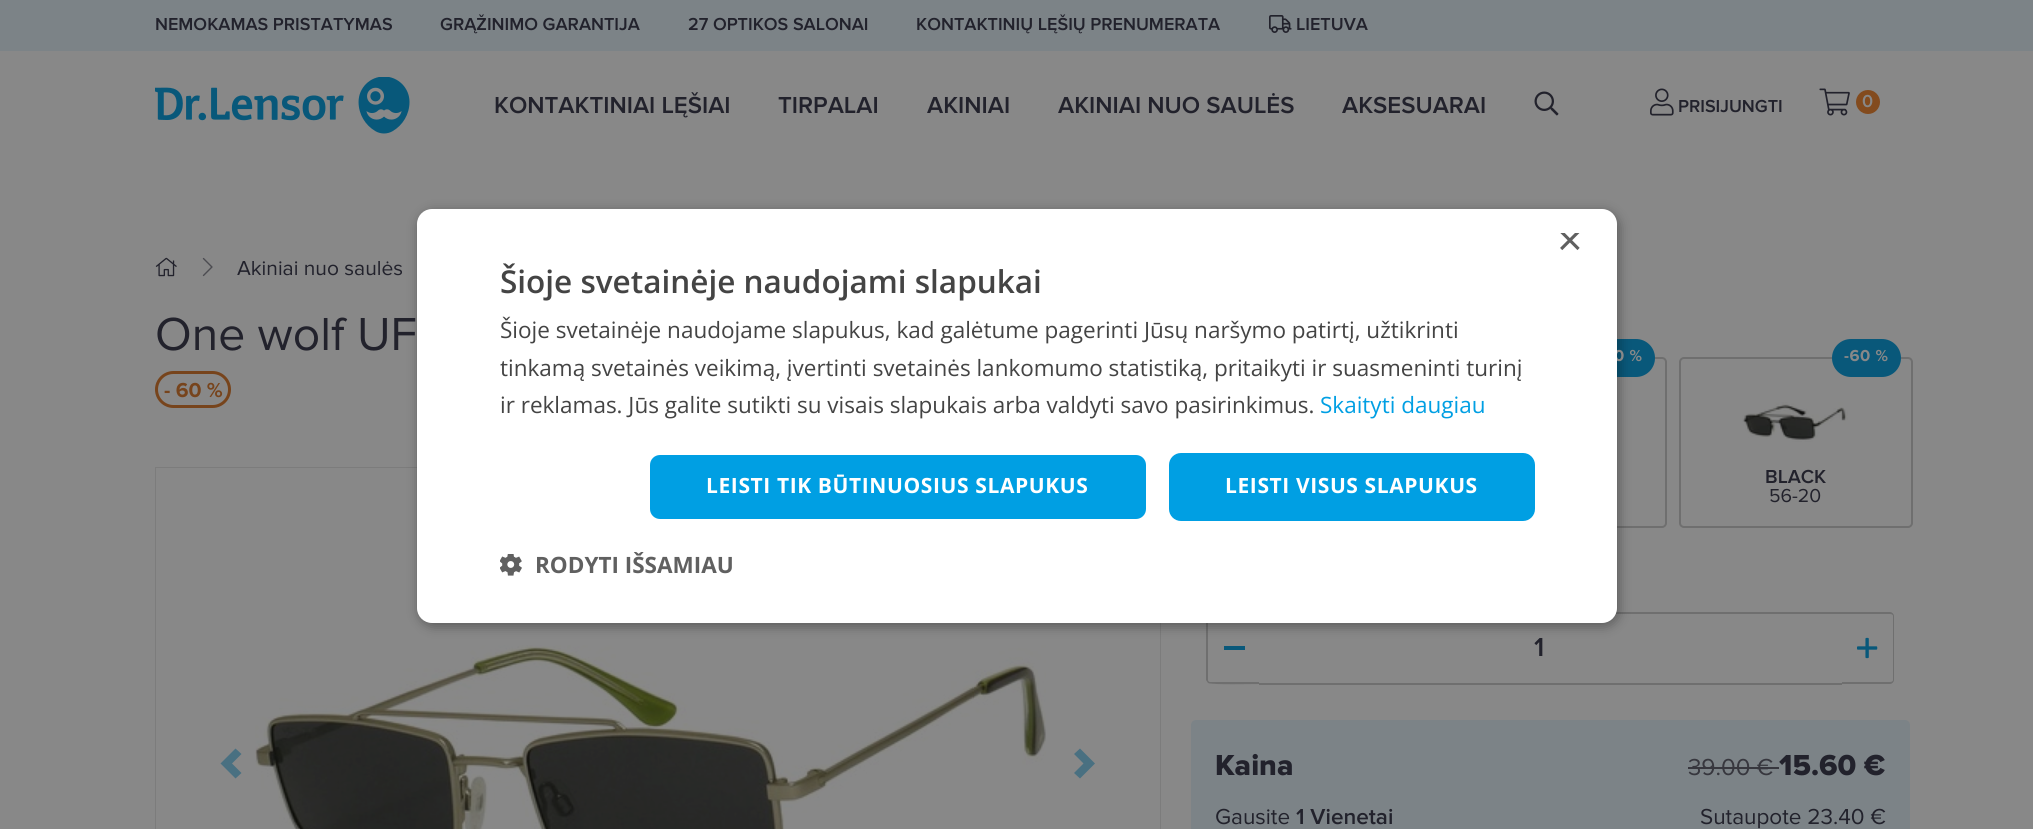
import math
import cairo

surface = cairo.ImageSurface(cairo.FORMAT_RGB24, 2033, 829)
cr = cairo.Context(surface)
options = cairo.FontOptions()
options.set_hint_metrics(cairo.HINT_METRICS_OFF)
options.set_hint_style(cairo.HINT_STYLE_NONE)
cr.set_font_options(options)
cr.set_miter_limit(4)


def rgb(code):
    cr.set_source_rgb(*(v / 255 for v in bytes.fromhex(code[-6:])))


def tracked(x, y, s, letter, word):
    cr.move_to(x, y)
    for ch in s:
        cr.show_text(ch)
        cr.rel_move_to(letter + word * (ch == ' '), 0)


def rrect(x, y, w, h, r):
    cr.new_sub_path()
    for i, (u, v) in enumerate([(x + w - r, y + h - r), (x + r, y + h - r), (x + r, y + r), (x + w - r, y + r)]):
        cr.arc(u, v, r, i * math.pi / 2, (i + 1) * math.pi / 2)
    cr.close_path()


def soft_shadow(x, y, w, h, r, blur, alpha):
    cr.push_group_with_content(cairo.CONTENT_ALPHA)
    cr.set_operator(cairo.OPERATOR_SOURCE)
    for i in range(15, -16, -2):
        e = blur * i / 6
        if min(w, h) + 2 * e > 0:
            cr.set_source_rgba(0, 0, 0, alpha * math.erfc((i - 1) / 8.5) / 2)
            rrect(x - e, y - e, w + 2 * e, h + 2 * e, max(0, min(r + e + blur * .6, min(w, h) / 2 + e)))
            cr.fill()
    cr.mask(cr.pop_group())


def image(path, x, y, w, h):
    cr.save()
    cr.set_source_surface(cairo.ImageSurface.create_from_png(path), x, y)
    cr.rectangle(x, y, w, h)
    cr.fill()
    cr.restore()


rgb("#888888")
cr.paint()
rgb("#7c8387")
cr.rectangle(0, 0, 2033, 51)
cr.fill()
image("img/1.png", 1269, 15, 23, 18)
image("img/2.png", 155, 77, 255, 57)
image("img/3.png", 1534, 91, 25, 25)
image("img/4.png", 1650, 88, 24, 28)
image("img/5.png", 1819, 88, 31, 28)
rgb("#834b1e")
cr.arc(1868, 102, 12, 0, 2 * math.pi)
cr.fill()
cr.rectangle(156, 468, 1004, 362)
rgb("#7c7c7c")
cr.stroke()
rgb("#888888")
cr.rectangle(156, 468, 1004, 361)
cr.fill()
rrect(1435, 358, 231, 169, 4)
rgb("#6f6f6f")
cr.stroke()
rgb("#09587a")
rrect(1587, 339, 68, 38, 19)
cr.fill()
rgb("#6f6f6f")
cr.set_fill_rule(cairo.FILL_RULE_EVEN_ODD)
cr.new_path()
cr.move_to(1210, 612)
cr.line_to(1260, 612)
cr.line_to(1260, 684)
cr.curve_to(1253, 684, 1211, 685, 1208, 683)
cr.line_to(1206, 680)
cr.line_to(1206, 616)
cr.line_to(1207, 613)
cr.close_path()
cr.move_to(1210, 614)
cr.line_to(1260, 614)
cr.line_to(1260, 682)
cr.line_to(1210, 682)
cr.curve_to(1209, 682, 1208, 681, 1208, 680)
cr.line_to(1208, 616)
cr.curve_to(1208, 615, 1209, 614, 1210, 614)
cr.close_path()
cr.fill()
cr.new_path()
cr.move_to(1840, 612)
cr.line_to(1890, 612)
cr.curve_to(1892, 612, 1894, 614, 1894, 616)
cr.line_to(1894, 680)
cr.curve_to(1894, 682, 1892, 684, 1890, 684)
cr.line_to(1840, 684)
cr.close_path()
cr.move_to(1840, 614)
cr.line_to(1890, 614)
cr.curve_to(1892, 614, 1893, 615, 1893, 616)
cr.line_to(1893, 680)
cr.curve_to(1893, 681, 1892, 682, 1890, 682)
cr.line_to(1840, 682)
cr.close_path()
cr.fill()
cr.rectangle(1615, 612, 227, 2)
cr.fill()
rgb("#000000")
soft_shadow(419, 212, 1200, 414, 15, 6, 0.35)
image("img/7.png", 155, 257, 22, 20)
image("img/8.png", 202, 257, 11, 20)
rrect(156.5, 372.5, 73, 34, 17)
rgb("#77441c")
cr.set_line_width(3)
cr.stroke()
rgb("#497081")
cr.set_fill_rule(cairo.FILL_RULE_WINDING)
cr.new_path()
cr.move_to(235.5, 748.5)
cr.line_to(220.5, 763.5)
cr.line_to(235.5, 778.5)
cr.line_to(241.5, 773)
cr.line_to(232, 763.5)
cr.line_to(241.5, 754)
cr.close_path()
cr.fill()
image("img/9.png", 255, 645, 791, 184)
cr.new_path()
cr.move_to(1080, 748.5)
cr.line_to(1074, 754)
cr.line_to(1083.5, 763.5)
cr.line_to(1074, 773)
cr.line_to(1080, 778.5)
cr.line_to(1095, 763.5)
cr.close_path()
cr.fill()
rrect(1680, 358, 232, 169, 4)
rgb("#6f6f6f")
cr.set_line_width(2)
cr.stroke()
rgb("#09587a")
rrect(1832, 339, 69, 38, 19)
cr.fill()
image("img/10.png", 1742, 402, 106, 40)
for x, y, w, h, color in [
    (1224, 646, 21, 4, "#09587a"),
    (1259, 682, 583, 1, "#888888"),
    (1259, 683, 583, 2, "#6f6f6f"),
]:
    rgb(color)
    cr.rectangle(x, y, w, h)
    cr.fill()
image("img/11.png", 1857, 637, 21, 22)
rgb("#7c8387")
rrect(1191, 720, 719, 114, 5)
cr.fill()
rgb("#37373e")
cr.rectangle(1688, 767, 91, 2)
cr.fill()
cr.select_font_face("Proxima Nova SemiBold")
cr.set_font_size(18)
rgb("#22222c")
for x, y, s in [
    (155, 30, "NEMOKAMAS PRISTATYMAS"),
    (440, 30, "GRĄŽINIMO GARANTIJA"),
    (688, 30, "27 OPTIKOS SALONAI"),
    (916, 30, "KONTAKTINIŲ LĘŠIŲ PRENUMERATA"),
    (1296, 30, "LIETUVA"),
]:
    cr.move_to(x, y)
    cr.show_text(s)
cr.set_font_size(24)
for x, y, s in [
    (494, 113, "KONTAKTINIAI LĘŠIAI"),
    (778, 113, "TIRPALAI"),
    (927, 113, "AKINIAI"),
    (1058, 113, "AKINIAI NUO SAULĖS"),
    (1342, 113, "AKSESUARAI"),
]:
    cr.move_to(x, y)
    cr.show_text(s)
cr.set_font_size(18)
cr.move_to(1678, 112)
cr.show_text("PRISIJUNGTI")
rgb("#888888")
cr.move_to(1862, 107)
cr.show_text("0")
cr.select_font_face("Proxima Nova")
cr.set_font_size(21)
rgb("#22222c")
cr.move_to(237, 275)
cr.show_text("Akiniai nuo saulės")
cr.set_font_size(48)
cr.move_to(155, 350)
cr.show_text("One wolf UF")
cr.select_font_face("Proxima Nova", cairo.FONT_SLANT_NORMAL, cairo.FONT_WEIGHT_BOLD)
cr.set_font_size(21)
rgb("#77441c")
cr.move_to(164, 397)
cr.show_text("- 60 %")
cr.set_font_size(16.5)
rgb("#888888")
tracked(1614, 361, "0 %", 0.5, 0)
rgb("#ffffff")
rrect(417, 209, 1200, 414, 15)
cr.fill()
cr.save()
cr.rectangle(1557, 233, 23, 22)
cr.clip()
cr.select_font_face("Liberation Sans")
cr.set_font_size(44)
rgb("#606060")
cr.move_to(1557, 255)
cr.show_text("×")
cr.restore()
cr.select_font_face("Open Sans SemiBold")
cr.set_font_size(31.5)
rgb("#444444")
cr.move_to(500, 293)
cr.show_text("Šioje svetainėje naudojami slapukai")
image("img/6.png", 500, 554, 22, 22)
cr.select_font_face("Open Sans", cairo.FONT_SLANT_NORMAL, cairo.FONT_WEIGHT_BOLD)
cr.set_font_size(22.5)
rgb("#606060")
cr.move_to(535, 573)
cr.show_text("RODYTI IŠSAMIAU")
rgb("#009fe3")
rrect(649, 454, 498, 66, 11)
cr.fill_preserve()
rgb("#ffffff")
cr.stroke()
cr.set_font_size(21)
tracked(706, 493, "LEISTI TIK BŪTINUOSIUS SLAPUKUS", 0.6, 0)
rgb("#009fe3")
rrect(1169, 453, 366, 68, 12)
cr.fill()
rgb("#ffffff")
tracked(1225, 493, "LEISTI VISUS SLAPUKUS", 0.6, 0)
cr.select_font_face("Open Sans")
cr.set_font_size(22.5)
rgb("#009fe3")
cr.move_to(1320, 413)
cr.show_text("Skaityti daugiau")
rgb("#444444")
for x, y, s in [
    (500, 413, "ir reklamas. Jūs galite sutikti su visais slapukais arba valdyti savo pasirinkimus."),
    (500, 376, "tinkamą svetainės veikimą, įvertinti svetainės lankomumo statistiką, pritaikyti ir suasmeninti turinį"),
    (500, 338, "Šioje svetainėje naudojame slapukus, kad galėtume pagerinti Jūsų naršymo patirtį, užtikrinti"),
]:
    cr.move_to(x, y)
    cr.show_text(s)
cr.select_font_face("Proxima Nova", cairo.FONT_SLANT_NORMAL, cairo.FONT_WEIGHT_BOLD)
cr.set_font_size(16.5)
rgb("#888888")
tracked(1844, 361, "-60 %", 0.5, 0)
cr.select_font_face("Proxima Nova SemiBold")
cr.set_font_size(19.5)
rgb("#22222c")
cr.move_to(1765, 483)
cr.show_text("BLACK")
cr.select_font_face("Proxima Nova")
cr.move_to(1769, 502)
cr.show_text("56-20")
cr.select_font_face("Proxima Nova SemiBold")
cr.set_font_size(27)
cr.move_to(1534, 656)
cr.show_text("1")
cr.select_font_face("Proxima Nova ExtraBold")
cr.set_font_size(30)
cr.move_to(1215, 775)
cr.show_text("Kaina")
cr.select_font_face("Proxima Nova")
cr.set_font_size(24)
rgb("#37373e")
cr.move_to(1688, 775)
cr.show_text("39.00 €")
cr.select_font_face("Proxima Nova ExtraBold")
cr.set_font_size(30)
rgb("#22222c")
cr.move_to(1779, 775)
cr.show_text("15.60 €")
cr.select_font_face("Proxima Nova")
cr.set_font_size(22.5)
cr.move_to(1215, 824)
cr.show_text("Gausite")
cr.select_font_face("Proxima Nova SemiBold")
cr.move_to(1296, 824)
cr.show_text("1 Vienetai")
cr.select_font_face("Proxima Nova")
cr.move_to(1700, 824)
cr.show_text("Sutaupote 23.40 €")
surface.write_to_png("page.png")
